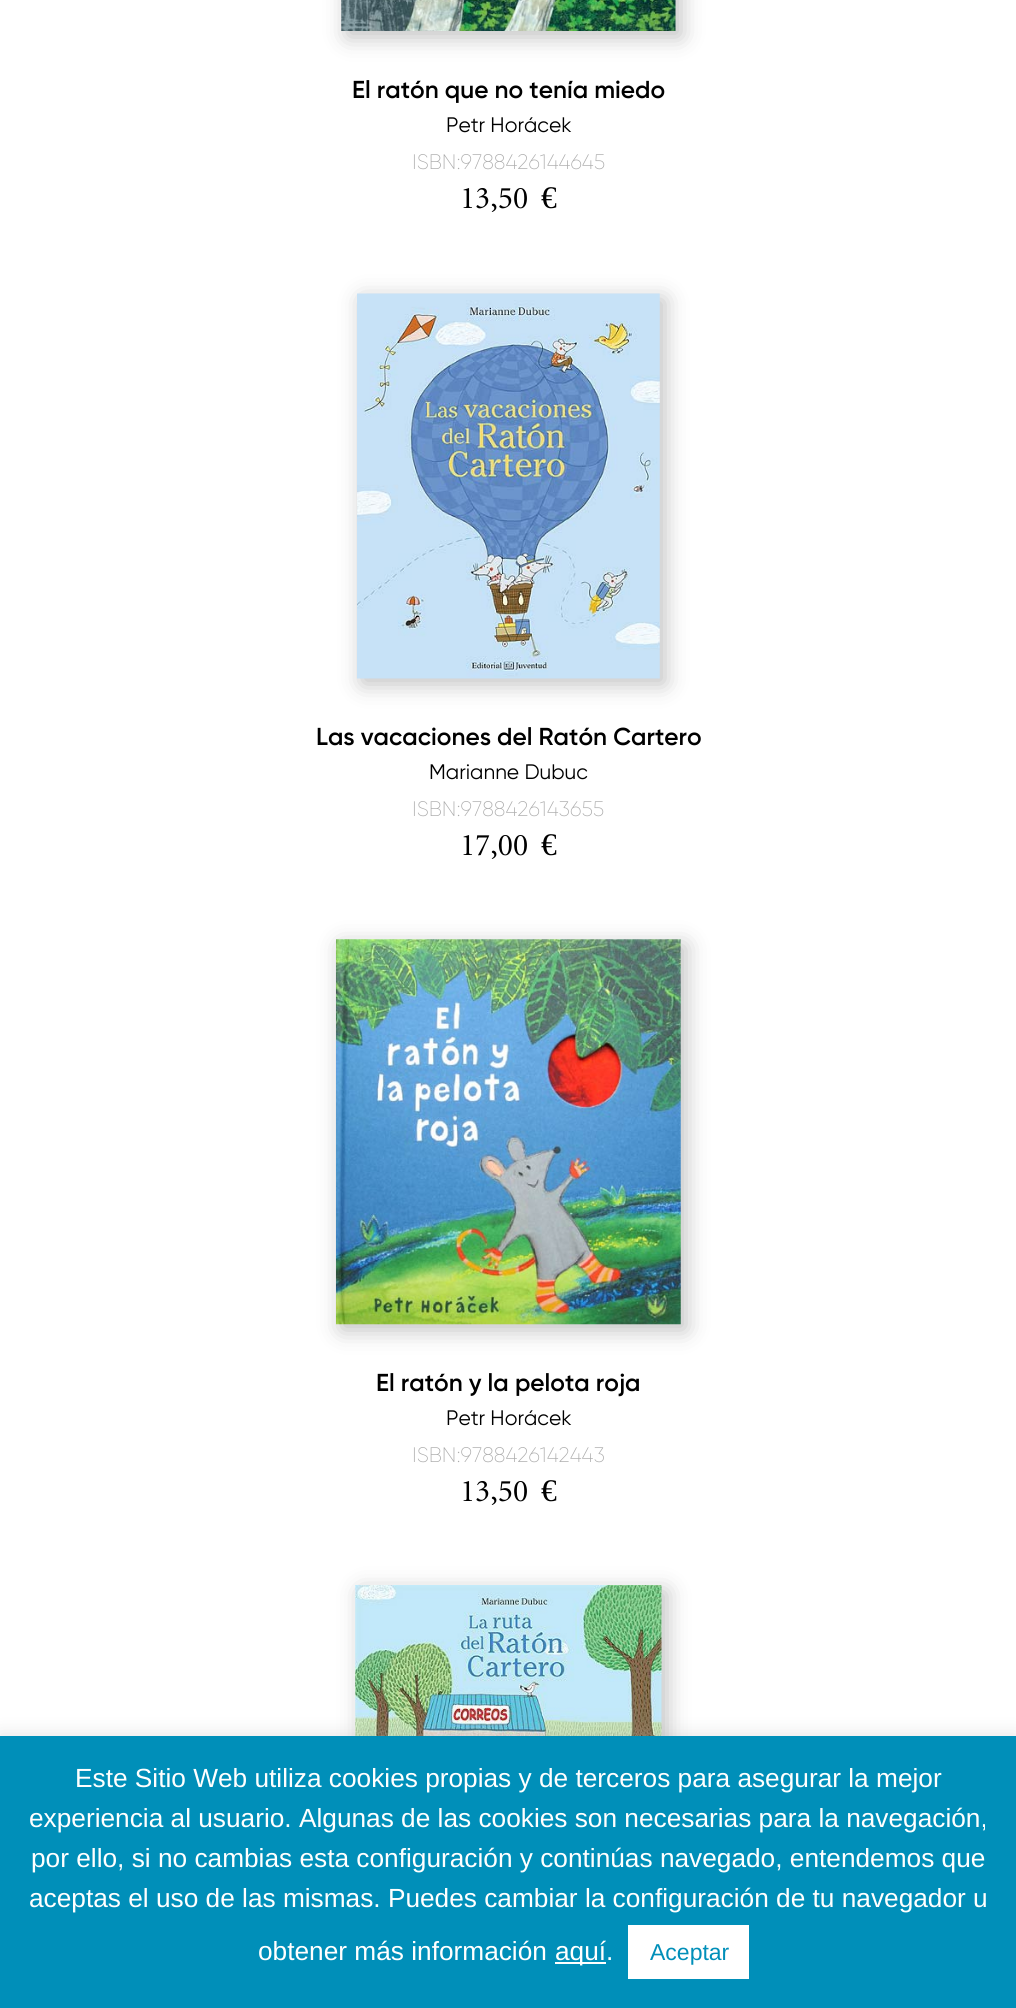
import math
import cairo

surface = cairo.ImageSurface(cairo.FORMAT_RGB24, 1016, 2008)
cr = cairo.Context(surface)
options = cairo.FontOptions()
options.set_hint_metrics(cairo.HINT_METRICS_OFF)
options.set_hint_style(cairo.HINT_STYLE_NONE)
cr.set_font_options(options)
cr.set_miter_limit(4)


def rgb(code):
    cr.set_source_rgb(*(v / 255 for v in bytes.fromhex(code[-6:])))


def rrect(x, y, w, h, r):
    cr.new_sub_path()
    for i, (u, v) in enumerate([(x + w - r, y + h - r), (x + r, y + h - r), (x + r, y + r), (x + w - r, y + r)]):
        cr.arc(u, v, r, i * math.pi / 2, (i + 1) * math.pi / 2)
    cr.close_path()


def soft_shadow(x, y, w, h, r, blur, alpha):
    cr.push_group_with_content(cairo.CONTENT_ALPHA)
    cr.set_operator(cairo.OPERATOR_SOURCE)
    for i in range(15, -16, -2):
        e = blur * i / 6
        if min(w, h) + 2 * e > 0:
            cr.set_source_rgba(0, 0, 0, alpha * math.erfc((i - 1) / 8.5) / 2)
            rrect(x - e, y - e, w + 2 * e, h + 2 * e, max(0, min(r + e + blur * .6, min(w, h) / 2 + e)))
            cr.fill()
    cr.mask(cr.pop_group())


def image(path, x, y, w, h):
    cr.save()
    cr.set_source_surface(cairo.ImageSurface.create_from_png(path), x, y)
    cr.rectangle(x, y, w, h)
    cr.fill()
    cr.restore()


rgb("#ffffff")
cr.paint()
rgb("#000000")
soft_shadow(347, -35, 334, 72, 0, 11.5, 0.25)
image("img/1.png", 341, 0, 335, 31)
soft_shadow(362, 299, 303, 385, 0, 11.5, 0.25)
image("img/2.png", 357, 293, 303, 386)
soft_shadow(341, 945, 345, 385, 0, 11.5, 0.25)
image("img/3.png", 336, 939, 345, 386)
soft_shadow(361, 1591, 306, 385, 0, 11.5, 0.25)
image("img/4.png", 355, 1585, 307, 151)
rgb("#acabab")
soft_shadow(0, 1734, 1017, 273, 0, 9, 0.3)
for x, y, w, h, color in [
    (0, 1736, 1016, 272, "#008fb9"),
    (555, 1962, 51, 2, "#ffffff"),
    (628, 1925, 121, 54, "#ffffff"),
]:
    rgb(color)
    cr.rectangle(x, y, w, h)
    cr.fill()
cr.select_font_face("Gilroy SemiBold")
cr.set_font_size(24.5)
rgb("#000000")
cr.move_to(352, 98)
cr.show_text("El ratón que no tenía miedo")
cr.select_font_face("Gilroy")
cr.set_font_size(21)
cr.move_to(446, 132)
cr.show_text("Petr Horácek")
cr.select_font_face("Gilroy ExtraLight")
rgb("#acacac")
cr.move_to(412, 169)
cr.show_text("ISBN:9788426144645")
cr.select_font_face("Minion")
cr.set_font_size(31.5)
rgb("#000000")
cr.move_to(460, 208)
cr.show_text("13,50")
cr.select_font_face("Liberation Serif")
cr.move_to(541, 208)
cr.show_text("€")
cr.select_font_face("Gilroy SemiBold")
cr.set_font_size(24.5)
cr.move_to(316, 745)
cr.show_text("Las vacaciones del Ratón Cartero")
cr.select_font_face("Gilroy")
cr.set_font_size(21)
cr.move_to(429, 779)
cr.show_text("Marianne Dubuc")
cr.select_font_face("Gilroy ExtraLight")
rgb("#acacac")
cr.move_to(412, 816)
cr.show_text("ISBN:9788426143655")
cr.select_font_face("Minion")
cr.set_font_size(31.5)
rgb("#000000")
cr.move_to(460, 855)
cr.show_text("17,00")
cr.select_font_face("Liberation Serif")
cr.move_to(541, 855)
cr.show_text("€")
cr.select_font_face("Gilroy SemiBold")
cr.set_font_size(24.5)
cr.move_to(376, 1391)
cr.show_text("El ratón y la pelota roja")
cr.select_font_face("Gilroy")
cr.set_font_size(21)
cr.move_to(446, 1425)
cr.show_text("Petr Horácek")
cr.select_font_face("Gilroy ExtraLight")
rgb("#acacac")
cr.move_to(412, 1462)
cr.show_text("ISBN:9788426142443")
cr.select_font_face("Minion")
cr.set_font_size(31.5)
rgb("#000000")
cr.move_to(460, 1501)
cr.show_text("13,50")
cr.select_font_face("Liberation Serif")
cr.move_to(541, 1501)
cr.show_text("€")
cr.select_font_face("Liberation Sans")
cr.set_font_size(26.25)
rgb("#ffffff")
for x, y, s in [
    (75, 1787, "Este Sitio Web utiliza cookies propias y de terceros para asegurar la mejor"),
    (29, 1827, "experiencia al usuario. Algunas de las cookies son necesarias para la navegación,"),
    (31, 1867, "por ello, si no cambias esta configuración y continúas navegado, entendemos que"),
    (29, 1907, "aceptas el uso de las mismas. Puedes cambiar la configuración de tu navegador u"),
    (258, 1960, "obtener más información"),
    (555, 1960, "aquí."),
]:
    cr.move_to(x, y)
    cr.show_text(s)
cr.set_font_size(23)
rgb("#008fb9")
cr.move_to(650, 1960)
cr.show_text("Aceptar")
surface.write_to_png("page.png")
